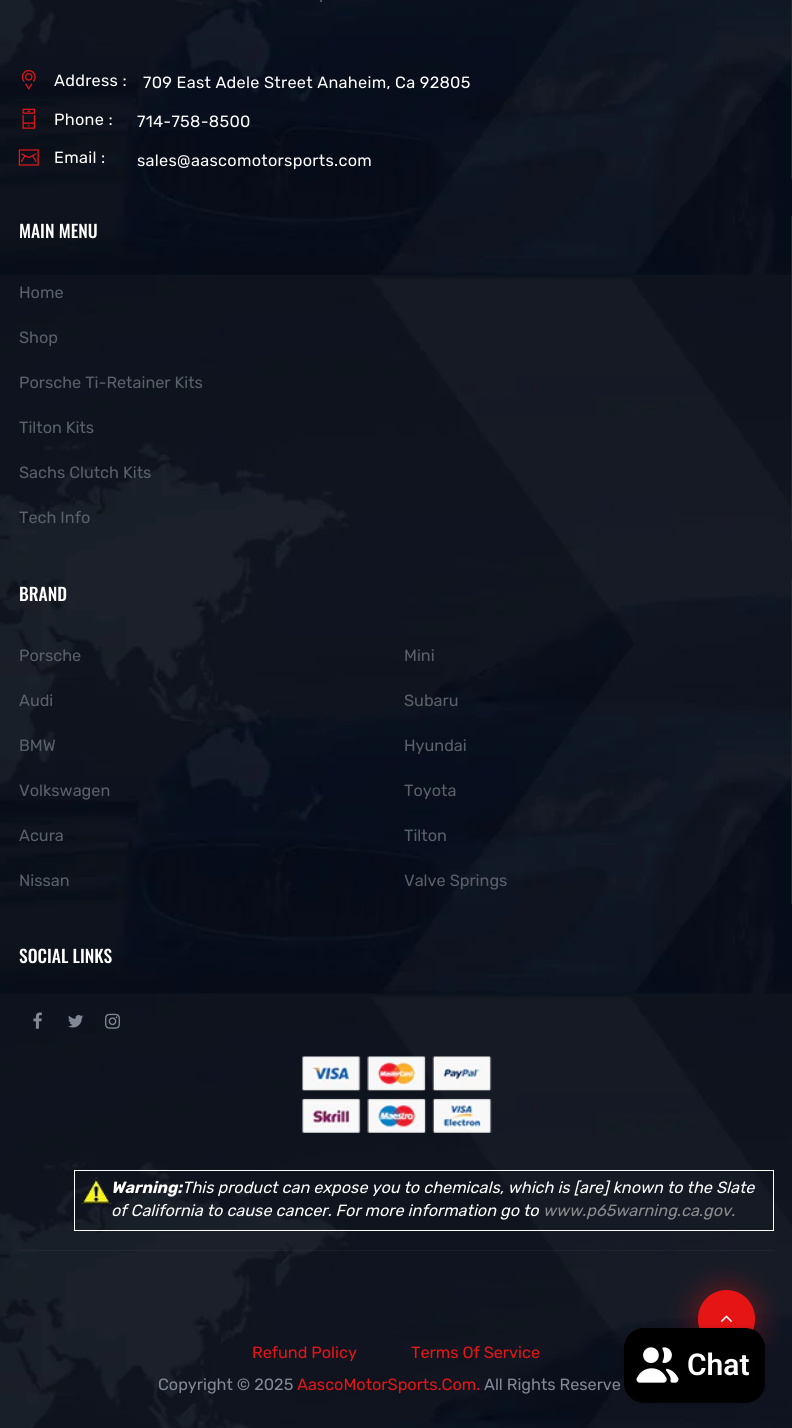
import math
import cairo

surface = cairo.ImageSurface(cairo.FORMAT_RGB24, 792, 1428)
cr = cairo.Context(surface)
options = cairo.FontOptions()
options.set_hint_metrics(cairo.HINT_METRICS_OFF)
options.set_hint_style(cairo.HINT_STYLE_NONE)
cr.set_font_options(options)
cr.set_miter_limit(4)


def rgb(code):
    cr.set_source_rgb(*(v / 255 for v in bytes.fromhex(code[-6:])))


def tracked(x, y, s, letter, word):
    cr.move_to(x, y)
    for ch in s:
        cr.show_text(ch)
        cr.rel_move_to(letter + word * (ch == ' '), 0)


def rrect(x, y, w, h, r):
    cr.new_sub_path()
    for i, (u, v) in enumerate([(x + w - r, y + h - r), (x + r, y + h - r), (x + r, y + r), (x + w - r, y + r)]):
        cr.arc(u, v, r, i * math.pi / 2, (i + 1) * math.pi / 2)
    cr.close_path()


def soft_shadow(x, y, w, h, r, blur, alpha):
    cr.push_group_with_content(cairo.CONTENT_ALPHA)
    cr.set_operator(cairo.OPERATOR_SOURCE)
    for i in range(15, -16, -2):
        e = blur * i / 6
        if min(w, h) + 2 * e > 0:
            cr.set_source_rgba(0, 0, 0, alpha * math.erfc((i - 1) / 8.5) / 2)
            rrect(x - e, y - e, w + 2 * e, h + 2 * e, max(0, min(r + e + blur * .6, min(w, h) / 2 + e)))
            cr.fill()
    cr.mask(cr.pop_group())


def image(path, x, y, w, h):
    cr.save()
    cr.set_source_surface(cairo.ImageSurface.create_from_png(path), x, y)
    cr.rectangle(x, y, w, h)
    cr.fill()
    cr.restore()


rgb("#ffffff")
cr.paint()
image("img/1.png", 0, 0, 792, 1428)
rgb("#21252c")
cr.rectangle(791, 0, 1, 179)
cr.fill()
image("img/2.png", 21, 70, 15, 20)
image("img/3.png", 22, 108, 13, 21)
image("img/4.png", 18, 149, 21, 17)
cr.rectangle(791, 216, 1, 325)
cr.fill()
cr.rectangle(791, 579, 1, 325)
cr.fill()
image("img/5.png", 33, 1012, 9, 17)
image("img/6.png", 68, 1015, 16, 13)
image("img/7.png", 105, 1013, 15, 16)
image("img/8.png", 302, 1056, 190, 77)
cr.rectangle(74.5, 1170.5, 699, 60)
rgb("#ffffff")
cr.set_line_width(1)
cr.stroke()
image("img/9.png", 81, 1177, 31, 27)
cr.set_source_rgba(0.922, 0.922, 0.922, 0.05)
cr.rectangle(19, 1250, 755, 1)
cr.fill()
rgb("#e51515")
soft_shadow(691, 1284, 70, 70, 35, 12.5, 0.3)
rgb("#e51515")
rrect(698, 1290, 57, 58, 28.5)
cr.fill()
image("img/10.png", 720, 1315, 12, 7)
rgb("#000000")
soft_shadow(624, 1328, 141, 75, 20, 3, 0.15)
rgb("#000000")
rrect(624, 1328, 141, 75, 20)
cr.fill()
image("img/11.png", 636, 1347, 43, 36)
cr.select_font_face("Rubik")
cr.set_font_size(16.25)
rgb("#5a6069")
tracked(319, 2, ".", 0.3, 0)
rgb("#ffffff")
for x, y, s in [
    (54, 86, "Address :"),
    (143, 88, "709 East Adele Street Anaheim, Ca 92805"),
    (54, 125, "Phone :"),
    (137, 127, "714-758-8500"),
    (54, 163, "Email :"),
    (137, 166, "sales@aascomotorsports.com"),
]:
    tracked(x, y, s, 0.3, 0)
cr.select_font_face("Oswald Medium")
cr.set_font_size(17.5)
cr.move_to(19, 238)
cr.show_text("MAIN MENU")
cr.select_font_face("Rubik")
cr.set_font_size(16.25)
rgb("#5a6069")
for x, y, s in [
    (19, 298, "Home"),
    (19, 343, "Shop"),
    (19, 388, "Porsche Ti-Retainer Kits"),
    (19, 433, "Tilton Kits"),
    (19, 478, "Sachs Clutch Kits"),
    (19, 523, "Tech Info"),
]:
    cr.move_to(x, y)
    cr.show_text(s)
cr.select_font_face("Oswald Medium")
cr.set_font_size(17.5)
rgb("#ffffff")
cr.move_to(19, 601)
cr.show_text("BRAND")
cr.select_font_face("Rubik")
cr.set_font_size(16.25)
rgb("#5a6069")
for x, y, s in [
    (19, 661, "Porsche"),
    (404, 661, "Mini"),
    (19, 706, "Audi"),
    (404, 706, "Subaru"),
    (19, 751, "BMW"),
    (404, 751, "Hyundai"),
    (19, 796, "Volkswagen"),
    (404, 796, "Toyota"),
    (19, 841, "Acura"),
    (404, 841, "Tilton"),
    (19, 886, "Nissan"),
    (404, 886, "Valve Springs"),
]:
    cr.move_to(x, y)
    cr.show_text(s)
cr.select_font_face("Oswald Medium")
cr.set_font_size(17.5)
rgb("#ffffff")
cr.move_to(19, 963)
cr.show_text("SOCIAL LINKS")
cr.select_font_face("Rubik", cairo.FONT_SLANT_ITALIC, cairo.FONT_WEIGHT_BOLD)
cr.set_font_size(16.25)
cr.move_to(111, 1193)
cr.show_text("Warning:")
cr.select_font_face("Rubik", cairo.FONT_SLANT_ITALIC)
cr.move_to(182, 1193)
cr.show_text("This product can expose you to chemicals, which is [are] known to the Slate")
cr.move_to(111, 1216)
cr.show_text("of California to cause cancer. For more information go to")
rgb("#8c8c8c")
cr.move_to(543, 1216)
cr.show_text("www.p65warning.ca.gov.")
cr.select_font_face("Rubik")
rgb("#e51515")
cr.move_to(252, 1358)
cr.show_text("Refund Policy")
cr.move_to(411, 1358)
cr.show_text("Terms Of Service")
rgb("#838896")
cr.move_to(158, 1390)
cr.show_text("Copyright © 2025")
rgb("#e51515")
cr.move_to(297, 1390)
cr.show_text("AascoMotorSports.Com.")
rgb("#838896")
cr.move_to(484, 1390)
cr.show_text("All Rights Reserve")
cr.select_font_face("Roboto SemiBold")
cr.set_font_size(30)
rgb("#ffffff")
cr.move_to(687, 1375)
cr.show_text("Chat")
surface.write_to_png("page.png")
